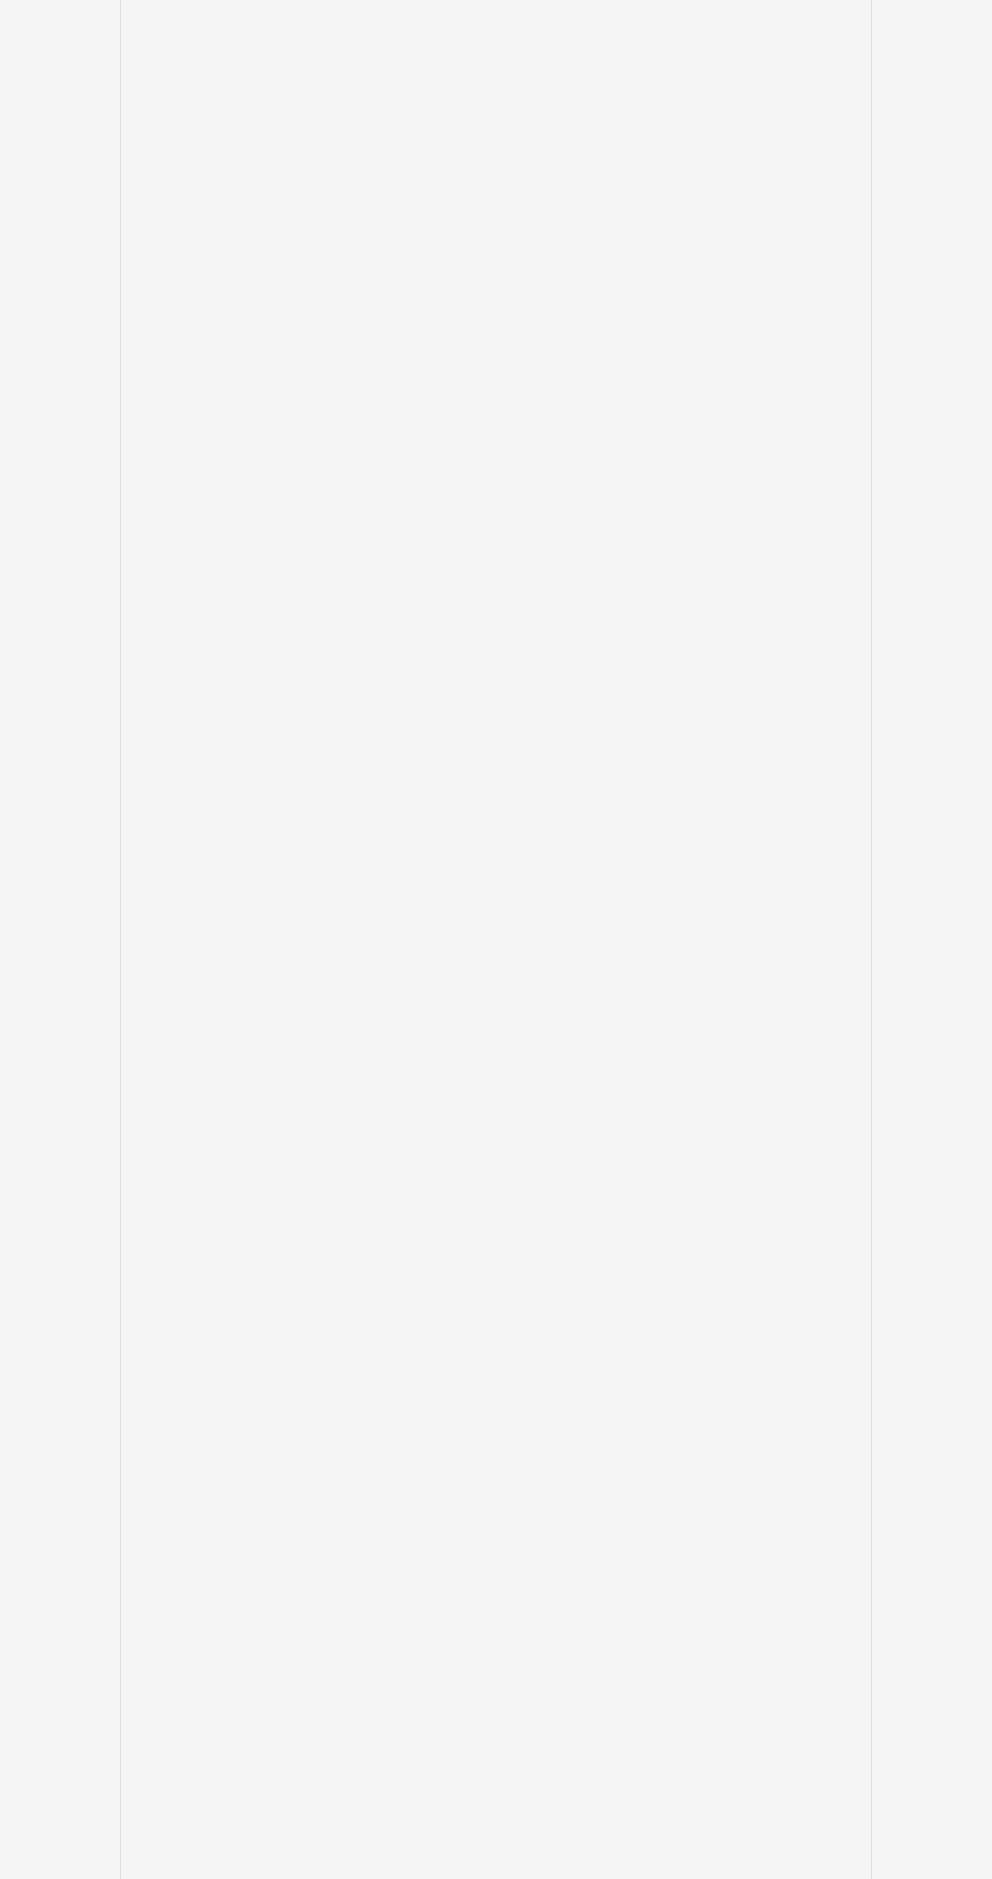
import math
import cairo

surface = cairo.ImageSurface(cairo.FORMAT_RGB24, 992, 1879)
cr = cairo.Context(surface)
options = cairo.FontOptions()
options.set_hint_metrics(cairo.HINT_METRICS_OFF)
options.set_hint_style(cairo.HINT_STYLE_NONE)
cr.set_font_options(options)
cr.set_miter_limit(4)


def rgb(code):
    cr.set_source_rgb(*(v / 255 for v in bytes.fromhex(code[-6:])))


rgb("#f5f5f5")
cr.paint()
rgb("#e0e0e0")
cr.rectangle(871, 0, 1, 1879)
cr.fill()
cr.rectangle(120, 0, 1, 1879)
cr.fill()
surface.write_to_png("page.png")
